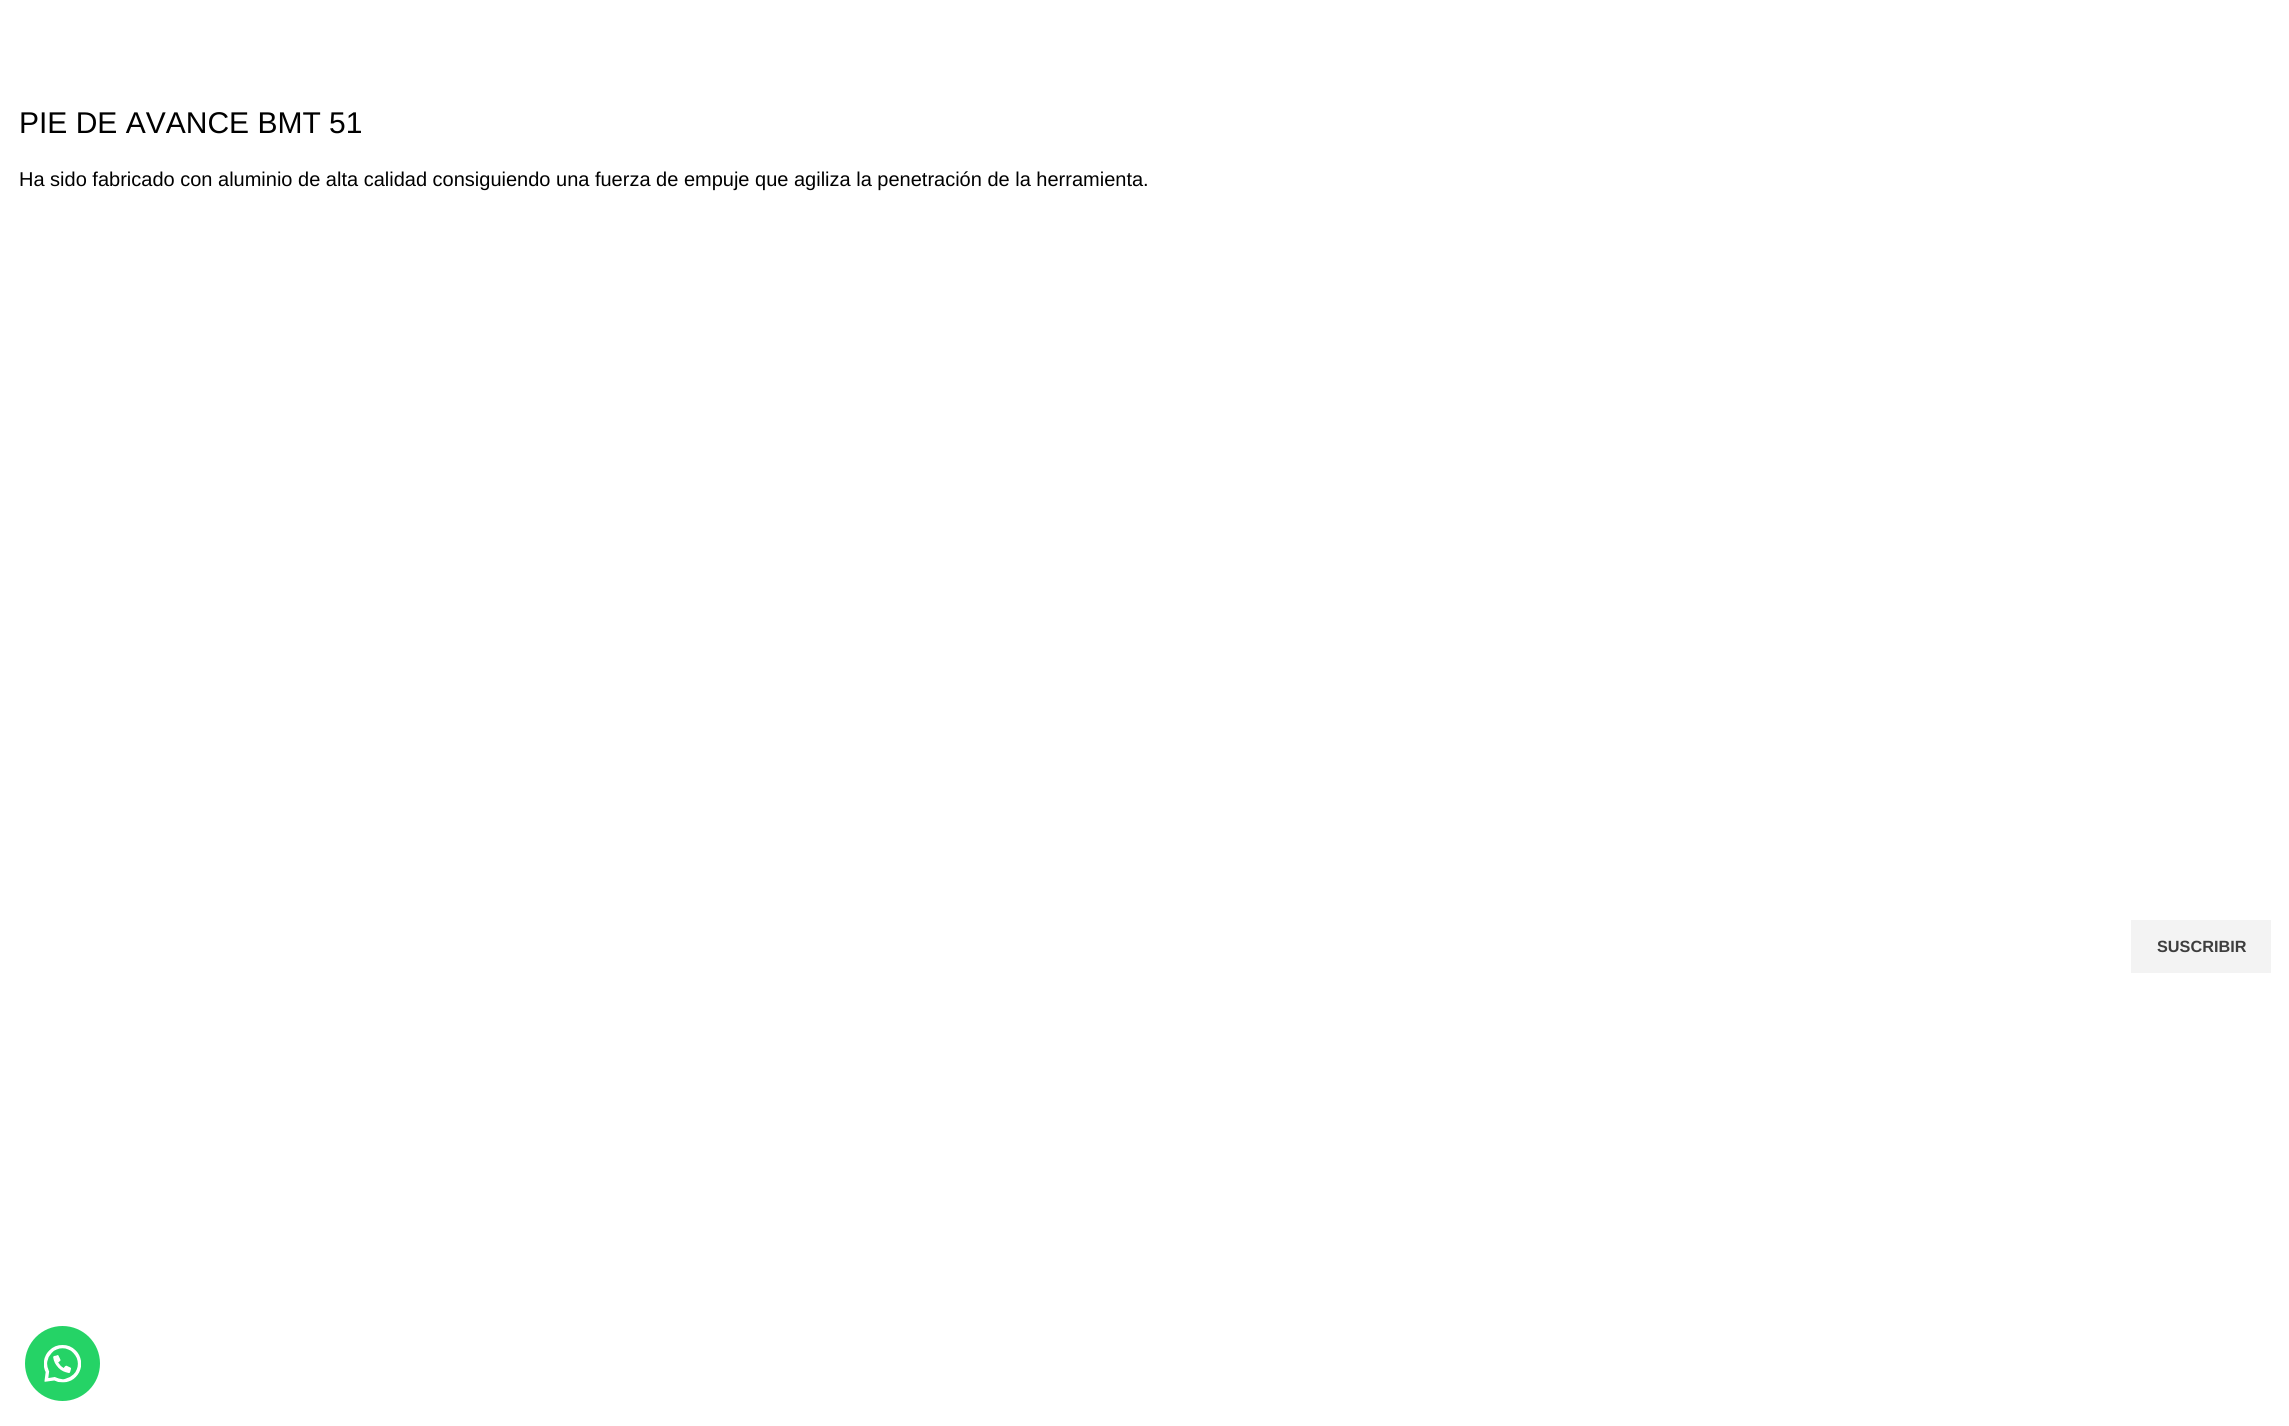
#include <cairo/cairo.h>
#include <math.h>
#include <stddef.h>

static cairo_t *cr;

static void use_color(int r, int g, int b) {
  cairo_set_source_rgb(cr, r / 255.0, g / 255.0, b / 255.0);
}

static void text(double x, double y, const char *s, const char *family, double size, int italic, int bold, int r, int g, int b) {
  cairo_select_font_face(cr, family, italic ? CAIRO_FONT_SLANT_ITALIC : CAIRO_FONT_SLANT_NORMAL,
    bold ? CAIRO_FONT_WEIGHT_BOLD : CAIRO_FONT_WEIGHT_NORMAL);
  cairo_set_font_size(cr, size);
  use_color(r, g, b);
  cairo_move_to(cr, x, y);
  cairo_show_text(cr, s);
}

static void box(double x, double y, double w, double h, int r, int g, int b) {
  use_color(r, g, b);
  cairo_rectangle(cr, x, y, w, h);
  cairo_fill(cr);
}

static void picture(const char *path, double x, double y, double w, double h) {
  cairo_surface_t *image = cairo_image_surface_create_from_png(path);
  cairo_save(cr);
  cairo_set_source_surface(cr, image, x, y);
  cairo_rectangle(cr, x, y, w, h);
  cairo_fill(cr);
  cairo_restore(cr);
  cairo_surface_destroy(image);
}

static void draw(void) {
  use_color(255, 255, 255);
  cairo_paint(cr);
  box(2131, 920, 140, 53, 243, 243, 243);
  use_color(37, 211, 102);
  cairo_arc(cr, 62.5, 1363.5, 37.5, 0, 2 * M_PI);
  cairo_fill(cr);
  picture("img_01.png", 44, 1345, 37, 38);
  text(19, 133, "PIE DE AVANCE BMT 51", "Liberation Sans", 30, 0, 0, 0, 0, 0);
  text(19, 186, "Ha sido fabricado con aluminio de alta calidad consiguiendo una fuerza de empuje que agiliza la penetración de la herramienta.", "Liberation Sans", 20, 0, 0, 0, 0, 0);
  text(2157, 952, "SUSCRIBIR", "Liberation Sans", 16.25, 0, 1, 62, 62, 62);
}

int main(void) {
  cairo_surface_t *surface = cairo_image_surface_create(CAIRO_FORMAT_RGB24, 2289, 1426);
  cr = cairo_create(surface);
  cairo_font_options_t *options = cairo_font_options_create();
  cairo_font_options_set_hint_metrics(options, CAIRO_HINT_METRICS_OFF);
  cairo_font_options_set_hint_style(options, CAIRO_HINT_STYLE_NONE);
  cairo_set_font_options(cr, options);
  cairo_set_miter_limit(cr, 4);
  draw();
  cairo_surface_write_to_png(surface, "out.png");
  cairo_font_options_destroy(options);
  cairo_destroy(cr);
  cairo_surface_destroy(surface);
  return 0;
}
